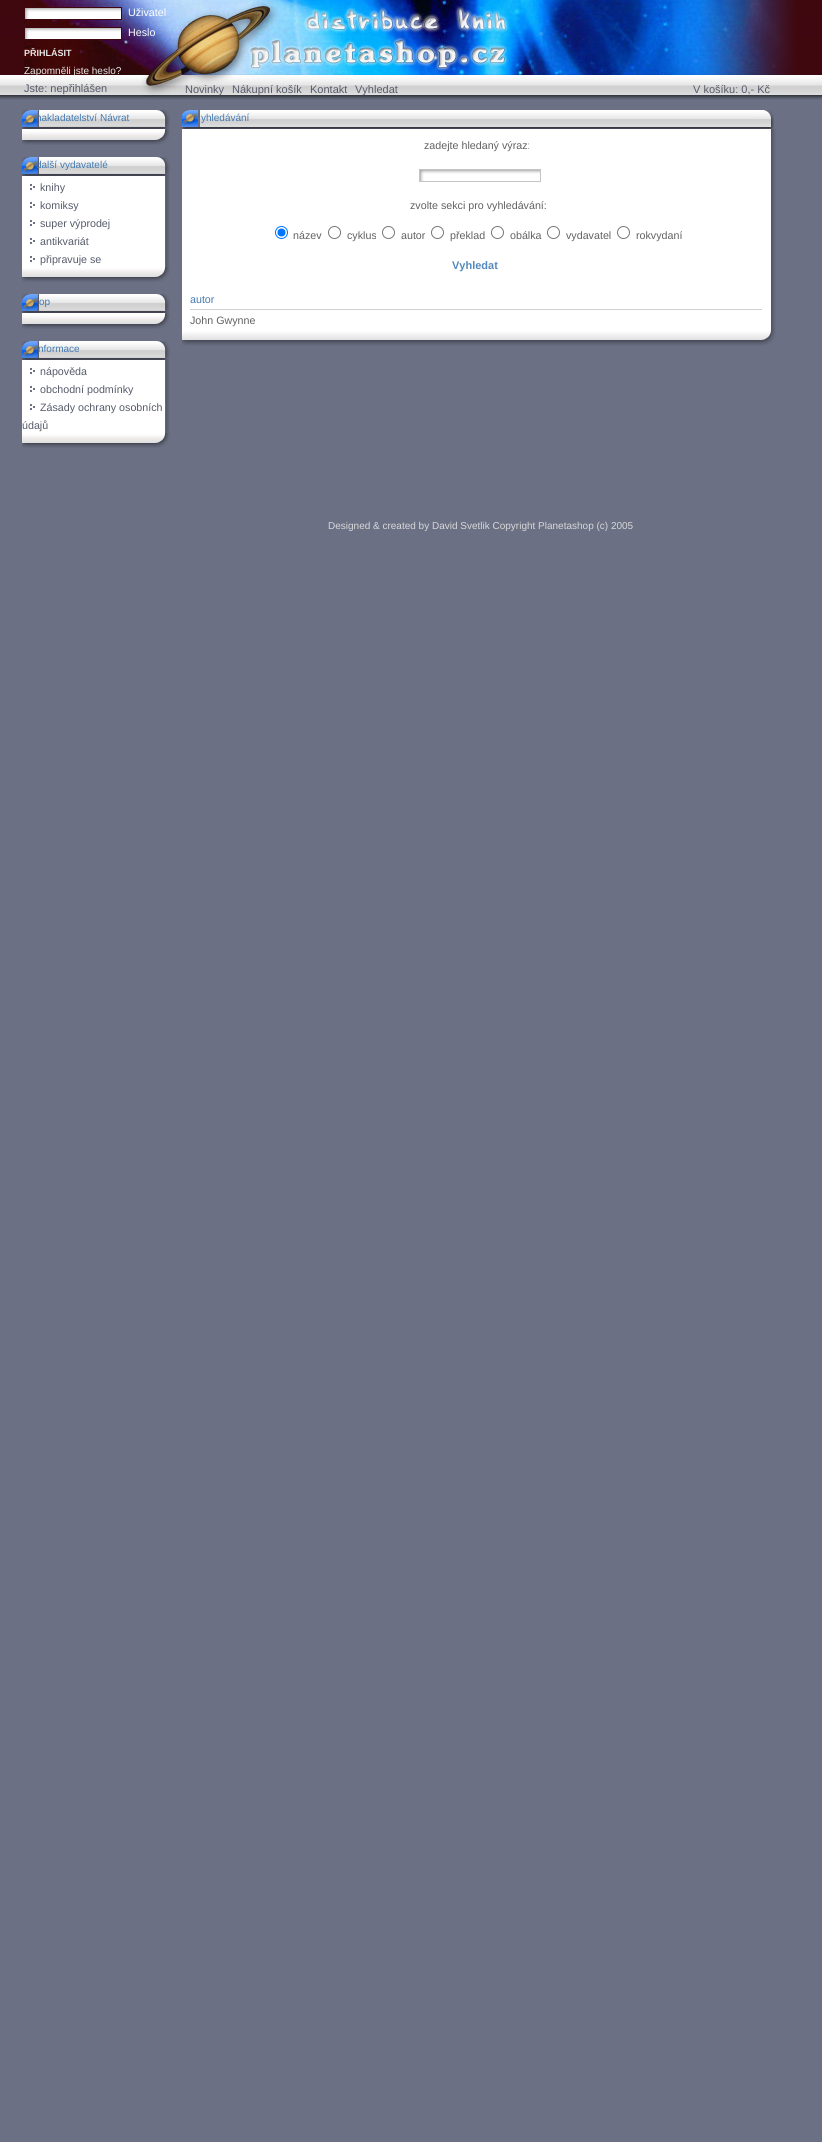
#include <cairo/cairo.h>
#include <math.h>
#include <stddef.h>

static cairo_t *cr;

static void use_color(int r, int g, int b) {
  cairo_set_source_rgb(cr, r / 255.0, g / 255.0, b / 255.0);
}

static void text(double x, double y, const char *s, const char *family, double size, int italic, int bold, int r, int g, int b) {
  cairo_select_font_face(cr, family, italic ? CAIRO_FONT_SLANT_ITALIC : CAIRO_FONT_SLANT_NORMAL,
    bold ? CAIRO_FONT_WEIGHT_BOLD : CAIRO_FONT_WEIGHT_NORMAL);
  cairo_set_font_size(cr, size);
  use_color(r, g, b);
  cairo_move_to(cr, x, y);
  cairo_show_text(cr, s);
}

static void box(double x, double y, double w, double h, int r, int g, int b) {
  use_color(r, g, b);
  cairo_rectangle(cr, x, y, w, h);
  cairo_fill(cr);
}

static void picture(const char *path, double x, double y, double w, double h) {
  cairo_surface_t *image = cairo_image_surface_create_from_png(path);
  cairo_save(cr);
  cairo_set_source_surface(cr, image, x, y);
  cairo_rectangle(cr, x, y, w, h);
  cairo_fill(cr);
  cairo_restore(cr);
  cairo_surface_destroy(image);
}

static void draw(void) {
  use_color(107, 112, 132);
  cairo_paint(cr);
  picture("img_01.png", 0, 0, 822, 100);
  picture("img_02.png", 24, 0, 774, 100);
  picture("img_03.png", 25, 8, 96, 11);
  cairo_rectangle(cr, 24.5, 7.5, 97, 12);
  use_color(63, 7, 15);
  cairo_set_line_width(cr, 1);
  cairo_stroke(cr);
  picture("img_03.png", 25, 28, 96, 11);
  cairo_rectangle(cr, 24.5, 27.5, 97, 12);
  cairo_stroke(cr);
  box(24, 48, 25, 10, 66, 6, 6);
  picture("img_04.png", 22, 110, 148, 20);
  picture("img_05.png", 22, 130, 148, 15);
  picture("img_04.png", 22, 157, 148, 20);
  picture("img_06.png", 22, 177, 148, 90);
  picture("img_07.png", 30, 184, 5, 6);
  picture("img_07.png", 30, 202, 5, 6);
  picture("img_07.png", 30, 220, 5, 6);
  picture("img_07.png", 30, 238, 5, 6);
  picture("img_07.png", 30, 256, 5, 6);
  picture("img_05.png", 22, 267, 148, 15);
  picture("img_04.png", 22, 294, 148, 20);
  picture("img_05.png", 22, 314, 148, 15);
  picture("img_04.png", 22, 341, 148, 20);
  picture("img_08.png", 22, 361, 148, 72);
  picture("img_07.png", 30, 368, 5, 6);
  picture("img_07.png", 30, 386, 5, 6);
  picture("img_07.png", 30, 404, 5, 6);
  picture("img_05.png", 22, 433, 148, 15);
  picture("img_09.png", 182, 110, 592, 19);
  picture("img_10.png", 182, 129, 594, 160);
  picture("img_11.png", 420, 170, 120, 11);
  cairo_rectangle(cr, 419.5, 169.5, 121, 12);
  use_color(196, 196, 196);
  cairo_stroke(cr);
  cairo_arc(cr, 281.5, 232.5, 6, 0, 2 * M_PI);
  use_color(0, 117, 255);
  cairo_stroke(cr);
  cairo_arc(cr, 281.5, 232.5, 4, 0, 2 * M_PI);
  cairo_fill(cr);
  cairo_arc(cr, 334.5, 232.5, 6, 0, 2 * M_PI);
  use_color(118, 118, 118);
  cairo_stroke(cr);
  cairo_arc(cr, 388.5, 232.5, 6, 0, 2 * M_PI);
  cairo_stroke(cr);
  cairo_arc(cr, 437.5, 232.5, 6, 0, 2 * M_PI);
  cairo_stroke(cr);
  cairo_arc(cr, 497.5, 232.5, 6, 0, 2 * M_PI);
  cairo_stroke(cr);
  cairo_arc(cr, 553.5, 232.5, 6, 0, 2 * M_PI);
  cairo_stroke(cr);
  cairo_arc(cr, 623.5, 232.5, 6, 0, 2 * M_PI);
  cairo_stroke(cr);
  picture("img_12.png", 182, 289, 594, 20);
  picture("img_13.png", 182, 309, 594, 21);
  box(190, 309, 572, 1, 208, 208, 208);
  picture("img_14.png", 182, 330, 594, 16);
  text(128, 16, "Uživatel", "Liberation Sans", 10.7, 0, 0, 255, 255, 255);
  text(128, 36, "Heslo", "Liberation Sans", 10.7, 0, 0, 255, 255, 255);
  text(24, 56, "PŘIHLÁSIT", "Liberation Sans", 9, 0, 1, 232, 232, 232);
  text(24, 74, "Zapomněli jste heslo?", "Liberation Sans", 10, 0, 0, 232, 232, 232);
  text(24, 92, "Jste: nepřihlášen", "Liberation Sans", 11, 0, 0, 87, 91, 106);
  text(185, 93, "Novinky", "Liberation Sans", 11, 0, 0, 87, 91, 106);
  text(232, 93, "Nákupní košík", "Liberation Sans", 11, 0, 0, 87, 91, 106);
  text(310, 93, "Kontakt", "Liberation Sans", 11, 0, 0, 87, 91, 106);
  text(355, 93, "Vyhledat", "Liberation Sans", 11, 0, 0, 87, 91, 106);
  text(693, 93, "V košíku: 0,- Kč", "Liberation Sans", 11, 0, 0, 87, 91, 106);
  text(36, 121, "nakladatelství Návrat", "Liberation Sans", 10, 0, 0, 67, 122, 177);
  text(36, 168, "další vydavatelé", "Liberation Sans", 10, 0, 0, 67, 122, 177);
  text(40, 191, "knihy", "Liberation Sans", 10.7, 0, 0, 87, 91, 106);
  text(40, 209, "komiksy", "Liberation Sans", 10.7, 0, 0, 87, 91, 106);
  text(40, 227, "super výprodej", "Liberation Sans", 10.7, 0, 0, 87, 91, 106);
  text(40, 245, "antikvariát", "Liberation Sans", 10.7, 0, 0, 87, 91, 106);
  text(40, 263, "připravuje se", "Liberation Sans", 10.7, 0, 0, 87, 91, 106);
  text(39, 305, "op", "Liberation Sans", 10, 0, 0, 67, 122, 177);
  text(38, 352, "nformace", "Liberation Sans", 10, 0, 0, 67, 122, 177);
  text(40, 375, "nápověda", "Liberation Sans", 10.7, 0, 0, 87, 91, 106);
  text(40, 393, "obchodní podmínky", "Liberation Sans", 10.7, 0, 0, 87, 91, 106);
  text(40, 411, "Zásady ochrany osobních", "Liberation Sans", 10.7, 0, 0, 87, 91, 106);
  text(22, 429, "údajů", "Liberation Sans", 10.7, 0, 0, 87, 91, 106);
  text(201, 121, "yhledávání", "Liberation Sans", 10, 0, 0, 67, 122, 177);
  text(424, 149, "zadejte hledaný výraz:", "Liberation Sans", 10.7, 0, 0, 97, 97, 97);
  text(410, 209, "zvolte sekci pro vyhledávání:", "Liberation Sans", 10.7, 0, 0, 97, 97, 97);
  text(293, 239, "název", "Liberation Sans", 10.7, 0, 0, 97, 97, 97);
  text(347, 239, "cyklus", "Liberation Sans", 10.7, 0, 0, 97, 97, 97);
  text(401, 239, "autor", "Liberation Sans", 10.7, 0, 0, 97, 97, 97);
  text(450, 239, "překlad", "Liberation Sans", 10.7, 0, 0, 97, 97, 97);
  text(510, 239, "obálka", "Liberation Sans", 10.7, 0, 0, 97, 97, 97);
  text(566, 239, "vydavatel", "Liberation Sans", 10.7, 0, 0, 97, 97, 97);
  text(636, 239, "rokvydaní", "Liberation Sans", 10.7, 0, 0, 97, 97, 97);
  text(452, 269, "Vyhledat", "Liberation Sans", 11, 0, 1, 85, 138, 191);
  text(190, 303, "autor", "Liberation Sans", 10.7, 0, 0, 67, 122, 177);
  text(190, 324, "John Gwynne", "Liberation Sans", 10.7, 0, 0, 97, 97, 97);
  text(328, 529, "Designed & created by David Svetlik Copyright Planetashop (c) 2005", "Liberation Sans", 10, 0, 0, 216, 216, 216);
}

int main(void) {
  cairo_surface_t *surface = cairo_image_surface_create(CAIRO_FORMAT_RGB24, 822, 2142);
  cr = cairo_create(surface);
  cairo_font_options_t *options = cairo_font_options_create();
  cairo_font_options_set_hint_metrics(options, CAIRO_HINT_METRICS_OFF);
  cairo_font_options_set_hint_style(options, CAIRO_HINT_STYLE_NONE);
  cairo_set_font_options(cr, options);
  cairo_set_miter_limit(cr, 4);
  draw();
  cairo_surface_write_to_png(surface, "out.png");
  cairo_font_options_destroy(options);
  cairo_destroy(cr);
  cairo_surface_destroy(surface);
  return 0;
}
